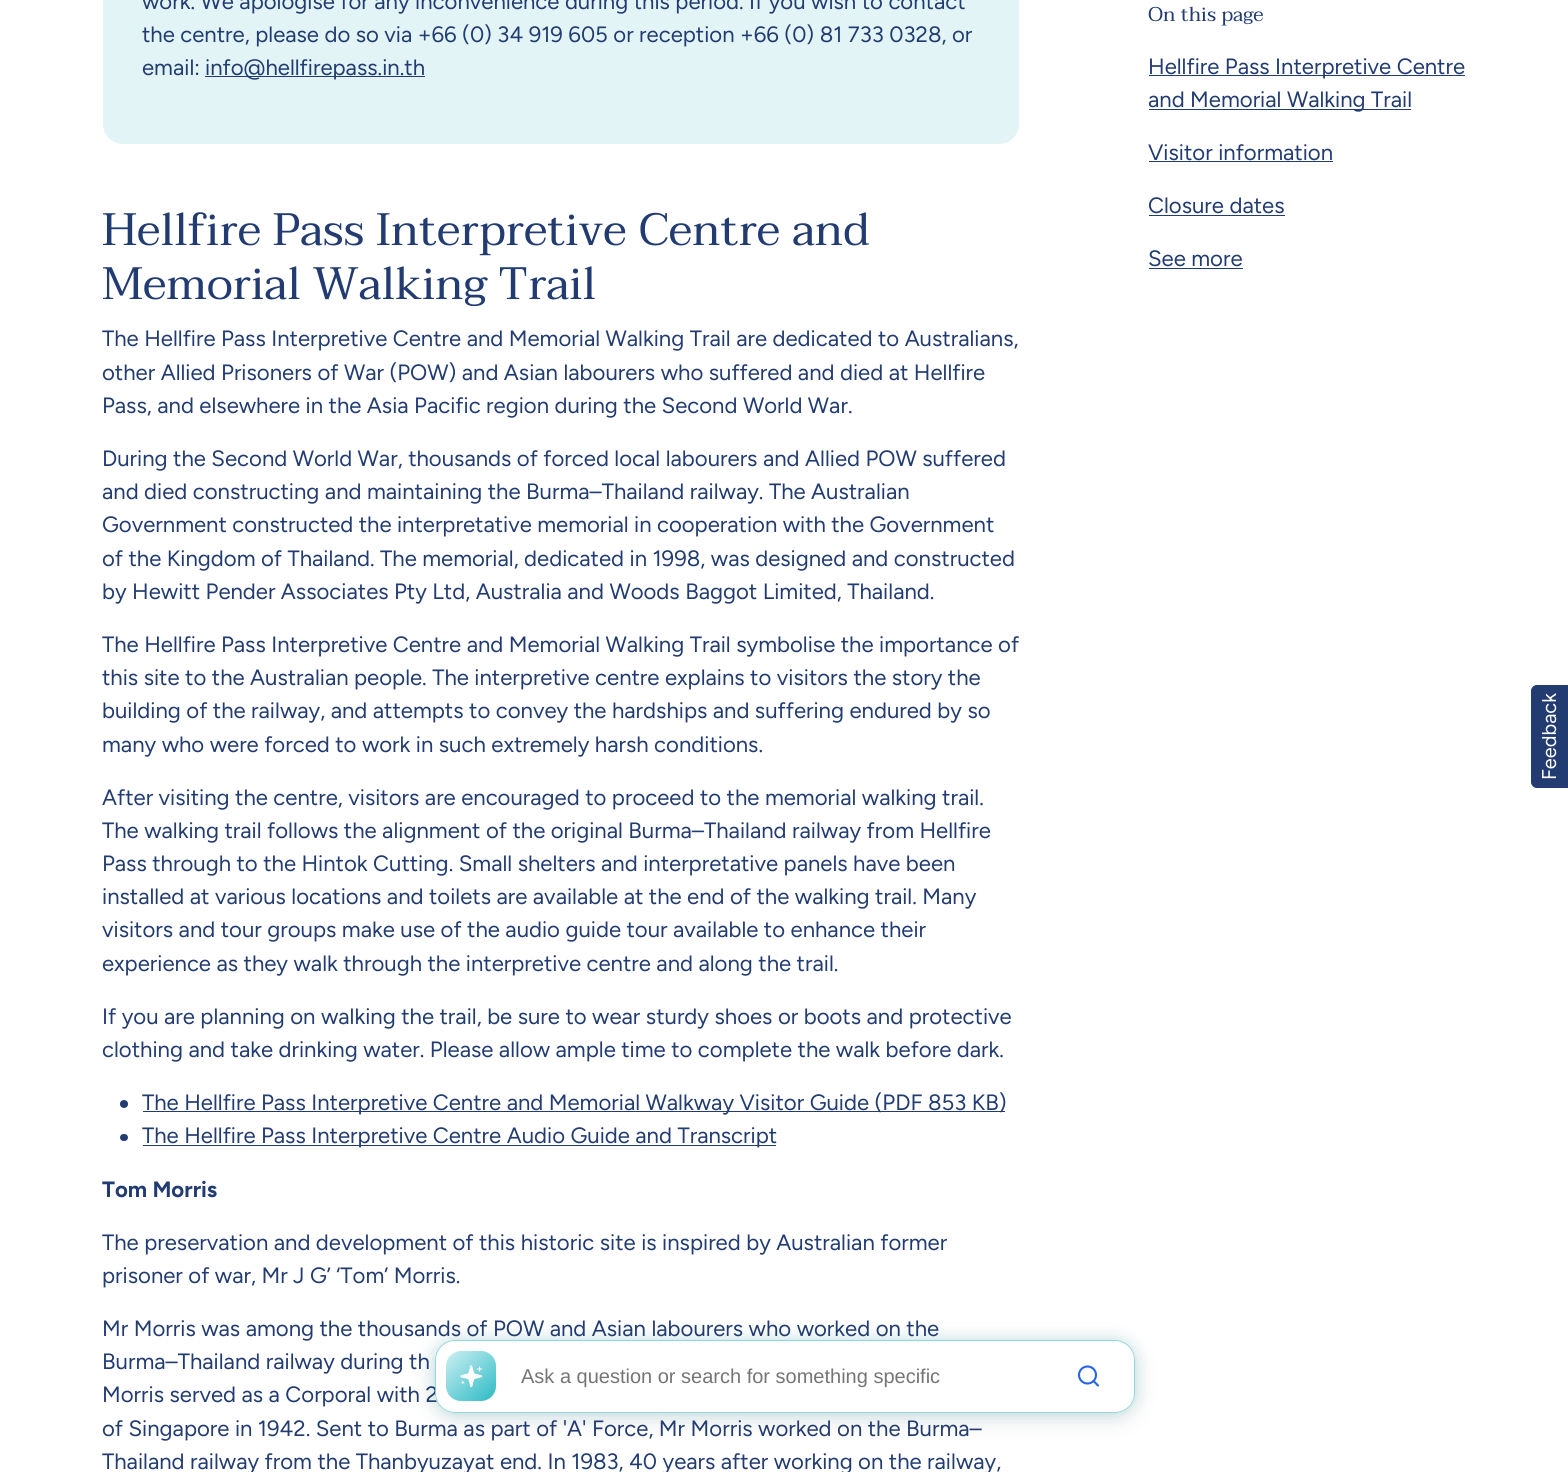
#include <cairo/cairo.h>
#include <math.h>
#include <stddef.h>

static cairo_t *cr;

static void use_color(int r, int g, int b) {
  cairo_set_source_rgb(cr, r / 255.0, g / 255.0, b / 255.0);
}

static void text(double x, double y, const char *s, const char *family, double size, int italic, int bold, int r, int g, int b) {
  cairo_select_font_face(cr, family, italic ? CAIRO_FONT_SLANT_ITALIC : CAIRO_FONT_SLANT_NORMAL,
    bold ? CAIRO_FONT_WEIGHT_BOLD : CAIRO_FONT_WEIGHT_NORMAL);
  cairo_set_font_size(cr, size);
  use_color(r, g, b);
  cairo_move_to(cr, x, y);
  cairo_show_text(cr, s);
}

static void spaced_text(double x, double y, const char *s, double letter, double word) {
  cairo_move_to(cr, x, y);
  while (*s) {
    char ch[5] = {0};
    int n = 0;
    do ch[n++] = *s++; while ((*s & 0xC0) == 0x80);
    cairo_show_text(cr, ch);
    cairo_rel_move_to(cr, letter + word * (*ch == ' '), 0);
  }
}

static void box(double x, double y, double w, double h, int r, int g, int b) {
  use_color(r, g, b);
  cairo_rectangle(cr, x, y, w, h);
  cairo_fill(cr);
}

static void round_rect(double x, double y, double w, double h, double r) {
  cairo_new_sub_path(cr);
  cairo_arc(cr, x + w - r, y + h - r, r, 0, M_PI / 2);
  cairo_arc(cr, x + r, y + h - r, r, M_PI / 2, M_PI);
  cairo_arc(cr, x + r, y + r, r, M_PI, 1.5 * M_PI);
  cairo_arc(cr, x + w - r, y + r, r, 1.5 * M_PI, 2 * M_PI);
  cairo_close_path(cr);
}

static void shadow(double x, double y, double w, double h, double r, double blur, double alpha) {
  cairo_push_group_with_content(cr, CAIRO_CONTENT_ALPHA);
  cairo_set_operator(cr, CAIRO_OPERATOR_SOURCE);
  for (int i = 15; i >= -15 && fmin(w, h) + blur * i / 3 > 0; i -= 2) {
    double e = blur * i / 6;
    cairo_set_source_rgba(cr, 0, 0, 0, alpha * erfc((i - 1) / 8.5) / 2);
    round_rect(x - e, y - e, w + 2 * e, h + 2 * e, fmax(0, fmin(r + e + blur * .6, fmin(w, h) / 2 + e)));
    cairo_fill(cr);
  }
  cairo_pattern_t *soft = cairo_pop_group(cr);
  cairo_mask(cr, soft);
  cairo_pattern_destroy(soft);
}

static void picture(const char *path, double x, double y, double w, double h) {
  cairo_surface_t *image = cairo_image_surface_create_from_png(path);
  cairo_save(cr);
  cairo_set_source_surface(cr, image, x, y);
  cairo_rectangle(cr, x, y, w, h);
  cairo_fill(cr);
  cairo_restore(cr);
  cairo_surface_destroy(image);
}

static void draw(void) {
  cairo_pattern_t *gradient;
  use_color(255, 255, 255);
  cairo_paint(cr);
  use_color(226, 244, 245);
  round_rect(103, -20, 916, 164, 20);
  cairo_fill(cr);
  box(205, 76, 220, 1, 34, 60, 114);
  cairo_arc(cr, 124, 1104, 4, 0, 2 * M_PI);
  cairo_fill(cr);
  box(143, 1111, 862, 1, 34, 60, 114);
  round_rect(120, 1134, 8, 7, 3.5);
  cairo_fill(cr);
  box(143, 1145, 633, 1, 34, 60, 114);
  box(1149, 75, 316, 1, 34, 60, 114);
  box(1149, 109, 262, 1, 34, 60, 114);
  box(1149, 161, 184, 1, 34, 60, 114);
  box(1149, 215, 136, 1, 34, 60, 114);
  box(1149, 268, 94, 1, 34, 60, 114);
  cairo_new_path(cr);
  cairo_move_to(cr, 1537, 685.5);
  cairo_line_to(cr, 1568.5, 685.5);
  cairo_line_to(cr, 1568.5, 787.5);
  cairo_line_to(cr, 1537, 787.5);
  cairo_curve_to(cr, 1534, 787.5, 1531.5, 785, 1531.5, 782);
  cairo_line_to(cr, 1531.5, 691);
  cairo_curve_to(cr, 1531.5, 688, 1534, 685.5, 1537, 685.5);
  cairo_close_path(cr);
  cairo_fill_preserve(cr);
  cairo_set_line_width(cr, 1);
  cairo_stroke(cr);
  cairo_save(cr);
  cairo_set_fill_rule(cr, CAIRO_FILL_RULE_EVEN_ODD);
  cairo_new_path(cr);
  cairo_move_to(cr, 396, 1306);
  cairo_line_to(cr, 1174, 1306);
  cairo_line_to(cr, 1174, 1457);
  cairo_line_to(cr, 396, 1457);
  cairo_close_path(cr);
  cairo_move_to(cr, 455, 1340);
  cairo_line_to(cr, 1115, 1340);
  cairo_curve_to(cr, 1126, 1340, 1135, 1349, 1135, 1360);
  cairo_line_to(cr, 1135, 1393);
  cairo_curve_to(cr, 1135, 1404, 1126, 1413, 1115, 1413);
  cairo_line_to(cr, 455, 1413);
  cairo_curve_to(cr, 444, 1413, 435, 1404, 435, 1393);
  cairo_line_to(cr, 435, 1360);
  cairo_curve_to(cr, 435, 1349, 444, 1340, 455, 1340);
  cairo_close_path(cr);
  cairo_clip(cr);
  use_color(17, 17, 17);
  shadow(435, 1345, 700, 73, 20, 12.5, 0.12);
  cairo_restore(cr);
  cairo_save(cr);
  cairo_set_fill_rule(cr, CAIRO_FILL_RULE_EVEN_ODD);
  cairo_new_path(cr);
  cairo_move_to(cr, 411, 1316);
  cairo_line_to(cr, 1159, 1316);
  cairo_line_to(cr, 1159, 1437);
  cairo_line_to(cr, 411, 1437);
  cairo_close_path(cr);
  cairo_move_to(cr, 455, 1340);
  cairo_line_to(cr, 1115, 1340);
  cairo_curve_to(cr, 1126, 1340, 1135, 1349, 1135, 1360);
  cairo_line_to(cr, 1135, 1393);
  cairo_curve_to(cr, 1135, 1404, 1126, 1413, 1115, 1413);
  cairo_line_to(cr, 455, 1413);
  cairo_curve_to(cr, 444, 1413, 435, 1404, 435, 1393);
  cairo_line_to(cr, 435, 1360);
  cairo_curve_to(cr, 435, 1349, 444, 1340, 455, 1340);
  cairo_close_path(cr);
  cairo_clip(cr);
  use_color(79, 187, 195);
  shadow(435, 1340, 700, 73, 20, 7.5, 0.3);
  cairo_restore(cr);
  text(142, 9, "work. We apologise for any inconvenience during this period. If you wish to contact", "Figtree", 22.15, 0, 0, 34, 60, 114);
  text(142, 42, "the centre, please do so via +66 (0) 34 919 605 or reception +66 (0) 81 733 0328, or", "Figtree", 22.15, 0, 0, 34, 60, 114);
  text(142, 75, "email:", "Figtree", 22.15, 0, 0, 34, 60, 114);
  text(205, 75, "info@hellfirepass.in.th", "Figtree", 22.15, 0, 0, 34, 60, 114);
  text(102, 245, "Hellfire Pass Interpretive Centre and", "Taviraj", 45.4, 0, 0, 34, 60, 114);
  text(102, 299, "Memorial Walking Trail", "Taviraj", 45.4, 0, 0, 34, 60, 114);
  text(102, 346, "The Hellfire Pass Interpretive Centre and Memorial Walking Trail are dedicated to Australians,", "Figtree", 22.15, 0, 0, 34, 60, 114);
  text(102, 380, "other Allied Prisoners of War (POW) and Asian labourers who suffered and died at Hellfire", "Figtree", 22.15, 0, 0, 34, 60, 114);
  text(102, 413, "Pass, and elsewhere in the Asia Pacific region during the Second World War.", "Figtree", 22.15, 0, 0, 34, 60, 114);
  text(102, 466, "During the Second World War, thousands of forced local labourers and Allied POW suffered", "Figtree", 22.15, 0, 0, 34, 60, 114);
  text(102, 499, "and died constructing and maintaining the Burma–Thailand railway. The Australian", "Figtree", 22.15, 0, 0, 34, 60, 114);
  spaced_text(102, 532, "Government constructed the interpretative memorial in cooperation with the Government", 0, -0.1);
  text(102, 566, "of the Kingdom of Thailand. The memorial, dedicated in 1998, was designed and constructed", "Figtree", 22.15, 0, 0, 34, 60, 114);
  text(102, 599, "by Hewitt Pender Associates Pty Ltd, Australia and Woods Baggot Limited, Thailand.", "Figtree", 22.15, 0, 0, 34, 60, 114);
  text(102, 652, "The Hellfire Pass Interpretive Centre and Memorial Walking Trail symbolise the importance of", "Figtree", 22.15, 0, 0, 34, 60, 114);
  text(102, 685, "this site to the Australian people. The interpretive centre explains to visitors the story the", "Figtree", 22.15, 0, 0, 34, 60, 114);
  text(102, 718, "building of the railway, and attempts to convey the hardships and suffering endured by so", "Figtree", 22.15, 0, 0, 34, 60, 114);
  text(102, 752, "many who were forced to work in such extremely harsh conditions.", "Figtree", 22.15, 0, 0, 34, 60, 114);
  text(102, 805, "After visiting the centre, visitors are encouraged to proceed to the memorial walking trail.", "Figtree", 22.15, 0, 0, 34, 60, 114);
  text(102, 838, "The walking trail follows the alignment of the original Burma–Thailand railway from Hellfire", "Figtree", 22.15, 0, 0, 34, 60, 114);
  text(102, 871, "Pass through to the Hintok Cutting. Small shelters and interpretative panels have been", "Figtree", 22.15, 0, 0, 34, 60, 114);
  text(102, 904, "installed at various locations and toilets are available at the end of the walking trail. Many", "Figtree", 22.15, 0, 0, 34, 60, 114);
  text(102, 937, "visitors and tour groups make use of the audio guide tour available to enhance their", "Figtree", 22.15, 0, 0, 34, 60, 114);
  text(102, 971, "experience as they walk through the interpretive centre and along the trail.", "Figtree", 22.15, 0, 0, 34, 60, 114);
  text(102, 1024, "If you are planning on walking the trail, be sure to wear sturdy shoes or boots and protective", "Figtree", 22.15, 0, 0, 34, 60, 114);
  text(102, 1057, "clothing and take drinking water. Please allow ample time to complete the walk before dark.", "Figtree", 22.15, 0, 0, 34, 60, 114);
  text(142, 1110, "The Hellfire Pass Interpretive Centre and Memorial Walkway Visitor Guide (PDF 853 KB)", "Figtree", 22.15, 0, 0, 34, 60, 114);
  text(142, 1143, "The Hellfire Pass Interpretive Centre Audio Guide and Transcript", "Figtree", 22.15, 0, 0, 34, 60, 114);
  text(102, 1197, "Tom Morris", "Figtree", 22.15, 0, 1, 34, 60, 114);
  text(102, 1250, "The preservation and development of this historic site is inspired by Australian former", "Figtree", 22.15, 0, 0, 34, 60, 114);
  text(102, 1283, "prisoner of war, Mr J G’ ‘Tom’ Morris.", "Figtree", 22.15, 0, 0, 34, 60, 114);
  text(102, 1336, "Mr Morris was among the thousands of POW and Asian labourers who worked on the", "Figtree", 22.15, 0, 0, 34, 60, 114);
  text(102, 1369, "Burma–Thailand railway during th", "Figtree", 22.15, 0, 0, 34, 60, 114);
  text(102, 1402, "Morris served as a Corporal with 2", "Figtree", 22.15, 0, 0, 34, 60, 114);
  text(102, 1436, "of Singapore in 1942. Sent to Burma as part of 'A' Force, Mr Morris worked on the Burma–", "Figtree", 22.15, 0, 0, 34, 60, 114);
  text(102, 1469, "Thailand railway from the Thanbyuzayat end. In 1983, 40 years after working on the railway,", "Figtree", 22.15, 0, 0, 34, 60, 114);
  text(1148, 21, "On this page", "Taviraj", 20, 0, 0, 34, 60, 114);
  text(1148, 74, "Hellfire Pass Interpretive Centre", "Figtree", 22.15, 0, 0, 34, 60, 114);
  text(1148, 107, "and Memorial Walking Trail", "Figtree", 22.15, 0, 0, 34, 60, 114);
  text(1148, 160, "Visitor information", "Figtree", 22.15, 0, 0, 34, 60, 114);
  text(1148, 213, "Closure dates", "Figtree", 22.15, 0, 0, 34, 60, 114);
  text(1148, 266, "See more", "Figtree", 22.15, 0, 0, 34, 60, 114);
  cairo_save(cr);
  cairo_translate(cr, 1556, 780);
  cairo_rotate(cr, -90 * M_PI / 180);
  text(0, 0, "Feedback", "Figtree", 20, 0, 0, 255, 255, 255);
  cairo_restore(cr);
  cairo_set_source_rgba(cr, 1, 1, 1, 0.8);
  round_rect(435, 1340, 700, 73, 20);
  cairo_fill(cr);
  round_rect(435.5, 1340.5, 699, 72, 19.5);
  cairo_set_source_rgba(cr, 0.31, 0.733, 0.765, 0.6);
  cairo_stroke(cr);
  gradient = cairo_pattern_create_linear(444, 1346, 507, 1416);
  cairo_pattern_add_color_stop_rgba(gradient, 0, 0.851, 0.957, 0.965, 1);
  cairo_pattern_add_color_stop_rgba(gradient, 1, 0, 0.671, 0.722, 1);
  cairo_set_source(cr, gradient);
  cairo_pattern_destroy(gradient);
  round_rect(446, 1351, 50, 50, 15);
  cairo_fill(cr);
  picture("img_01.png", 460, 1365, 23, 23);
  text(521, 1383, "Ask a question or search for something specific", "Liberation Sans", 20, 0, 0, 117, 117, 117);
  cairo_new_path(cr);
  cairo_move_to(cr, 1098, 1385.5);
  cairo_line_to(cr, 1093.5, 1381);
  use_color(37, 99, 235);
  cairo_set_line_width(cr, 2.1);
  cairo_set_line_cap(cr, CAIRO_LINE_CAP_ROUND);
  cairo_set_line_join(cr, CAIRO_LINE_JOIN_ROUND);
  cairo_stroke(cr);
  cairo_arc(cr, 1087.5, 1375, 8.5, 0, 2 * M_PI);
  cairo_set_line_cap(cr, CAIRO_LINE_CAP_BUTT);
  cairo_set_line_join(cr, CAIRO_LINE_JOIN_MITER);
  cairo_stroke(cr);
}

int main(void) {
  cairo_surface_t *surface = cairo_image_surface_create(CAIRO_FORMAT_RGB24, 1568, 1472);
  cr = cairo_create(surface);
  cairo_font_options_t *options = cairo_font_options_create();
  cairo_font_options_set_hint_metrics(options, CAIRO_HINT_METRICS_OFF);
  cairo_font_options_set_hint_style(options, CAIRO_HINT_STYLE_NONE);
  cairo_set_font_options(cr, options);
  cairo_set_miter_limit(cr, 4);
  draw();
  cairo_surface_write_to_png(surface, "out.png");
  cairo_font_options_destroy(options);
  cairo_destroy(cr);
  cairo_surface_destroy(surface);
  return 0;
}
